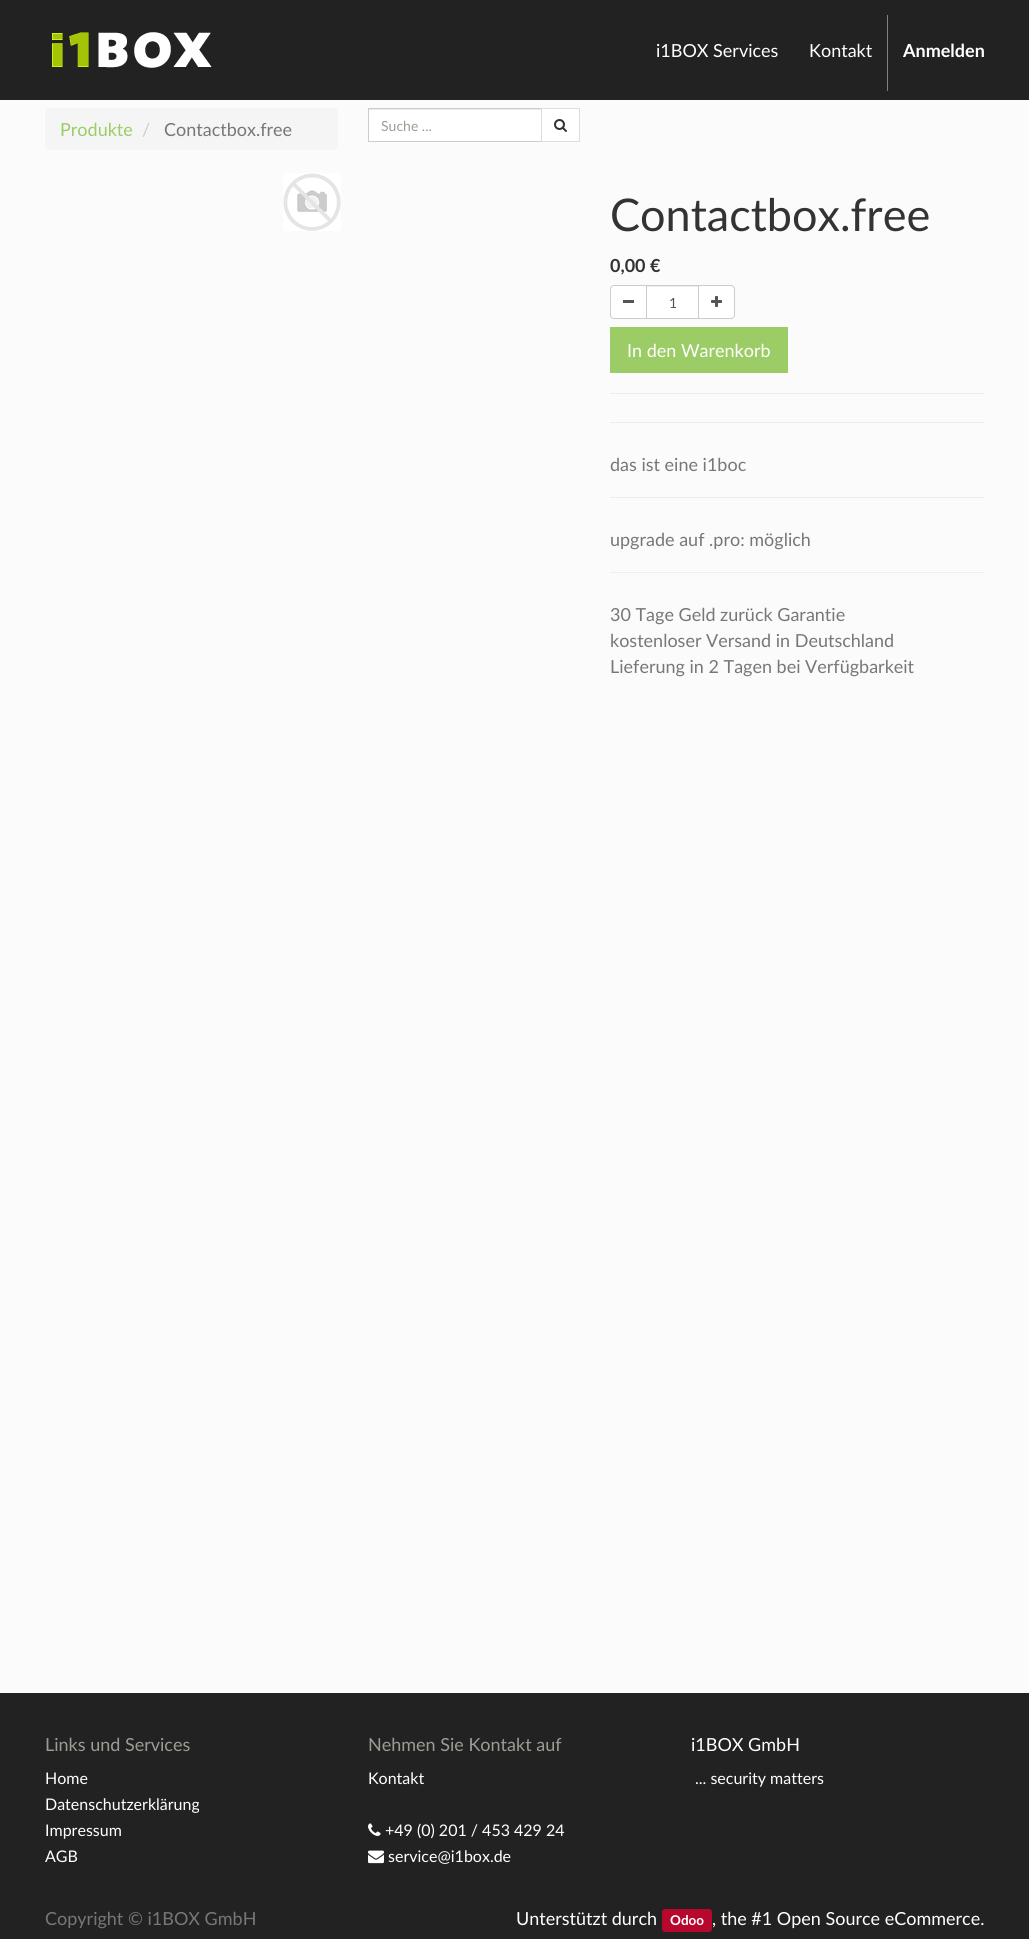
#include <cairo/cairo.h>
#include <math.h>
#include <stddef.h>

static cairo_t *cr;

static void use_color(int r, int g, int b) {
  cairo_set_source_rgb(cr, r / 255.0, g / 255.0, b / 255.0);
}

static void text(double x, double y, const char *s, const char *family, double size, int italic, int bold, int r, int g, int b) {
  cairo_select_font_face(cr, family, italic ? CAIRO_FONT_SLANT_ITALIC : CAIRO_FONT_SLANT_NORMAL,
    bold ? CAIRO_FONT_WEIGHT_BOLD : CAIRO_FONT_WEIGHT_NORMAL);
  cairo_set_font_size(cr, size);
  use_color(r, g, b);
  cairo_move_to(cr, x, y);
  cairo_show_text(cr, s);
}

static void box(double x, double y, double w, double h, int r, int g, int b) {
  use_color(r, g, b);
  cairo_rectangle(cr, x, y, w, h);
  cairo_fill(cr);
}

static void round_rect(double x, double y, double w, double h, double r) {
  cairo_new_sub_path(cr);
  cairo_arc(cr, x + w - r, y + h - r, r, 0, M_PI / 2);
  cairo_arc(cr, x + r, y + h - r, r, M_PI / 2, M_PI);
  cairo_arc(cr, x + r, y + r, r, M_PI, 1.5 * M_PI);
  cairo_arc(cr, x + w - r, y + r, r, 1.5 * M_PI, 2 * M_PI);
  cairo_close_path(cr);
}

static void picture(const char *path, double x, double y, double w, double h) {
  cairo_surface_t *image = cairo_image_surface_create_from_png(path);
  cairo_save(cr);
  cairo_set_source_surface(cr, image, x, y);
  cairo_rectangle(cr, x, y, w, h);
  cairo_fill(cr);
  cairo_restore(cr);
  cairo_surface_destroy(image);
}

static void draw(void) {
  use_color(251, 251, 251);
  cairo_paint(cr);
  box(0, 0, 1029, 100, 34, 34, 34);
  picture("img_01.png", 52, 32, 160, 36);
  box(887, 15, 1, 76, 128, 128, 128);
  use_color(245, 245, 245);
  round_rect(45, 108, 293, 42, 4);
  cairo_fill(cr);
  box(369, 110, 172, 31, 255, 255, 255);
  box(369, 109, 172, 1, 236, 236, 236);
  cairo_rectangle(cr, 368.5, 108.5, 173, 33);
  use_color(204, 204, 204);
  cairo_set_line_width(cr, 1);
  cairo_stroke(cr);
  use_color(255, 255, 255);
  cairo_rectangle(cr, 541.5, 108.5, 38, 33);
  cairo_fill_preserve(cr);
  use_color(221, 221, 221);
  cairo_stroke(cr);
  picture("img_02.png", 554, 119, 13, 13);
  picture("img_03.png", 283, 173, 58, 58);
  use_color(255, 255, 255);
  cairo_new_path(cr);
  cairo_move_to(cr, 614, 285);
  cairo_line_to(cr, 646, 285);
  cairo_line_to(cr, 646, 319);
  cairo_line_to(cr, 614, 319);
  cairo_curve_to(cr, 612, 319, 610, 317, 610, 315);
  cairo_line_to(cr, 610, 289);
  cairo_curve_to(cr, 610, 287, 612, 285, 614, 285);
  cairo_close_path(cr);
  cairo_fill(cr);
  use_color(204, 204, 204);
  cairo_set_fill_rule(cr, CAIRO_FILL_RULE_EVEN_ODD);
  cairo_new_path(cr);
  cairo_move_to(cr, 614, 285);
  cairo_line_to(cr, 646, 285);
  cairo_line_to(cr, 646, 319);
  cairo_line_to(cr, 614, 319);
  cairo_curve_to(cr, 612, 319, 610, 317, 610, 315);
  cairo_line_to(cr, 610, 289);
  cairo_curve_to(cr, 610, 287, 612, 285, 614, 285);
  cairo_close_path(cr);
  cairo_move_to(cr, 614, 286);
  cairo_line_to(cr, 646, 286);
  cairo_line_to(cr, 646, 318);
  cairo_line_to(cr, 614, 318);
  cairo_curve_to(cr, 612.5, 318, 611, 316.5, 611, 315);
  cairo_line_to(cr, 611, 289);
  cairo_curve_to(cr, 611, 287.5, 612.5, 286, 614, 286);
  cairo_close_path(cr);
  cairo_fill(cr);
  box(623, 300, 11, 3, 85, 85, 85);
  box(647, 287, 51, 31, 255, 255, 255);
  box(647, 286, 51, 1, 236, 236, 236);
  cairo_rectangle(cr, 646.5, 285.5, 52, 33);
  use_color(204, 204, 204);
  cairo_stroke(cr);
  use_color(255, 255, 255);
  cairo_new_path(cr);
  cairo_move_to(cr, 699, 285);
  cairo_line_to(cr, 731, 285);
  cairo_curve_to(cr, 733, 285, 735, 287, 735, 289);
  cairo_line_to(cr, 735, 315);
  cairo_curve_to(cr, 735, 317, 733, 319, 731, 319);
  cairo_line_to(cr, 699, 319);
  cairo_close_path(cr);
  cairo_fill(cr);
  use_color(204, 204, 204);
  cairo_new_path(cr);
  cairo_move_to(cr, 699, 285);
  cairo_line_to(cr, 731, 285);
  cairo_curve_to(cr, 733, 285, 735, 287, 735, 289);
  cairo_line_to(cr, 735, 315);
  cairo_curve_to(cr, 735, 317, 733, 319, 731, 319);
  cairo_line_to(cr, 699, 319);
  cairo_close_path(cr);
  cairo_move_to(cr, 699, 286);
  cairo_line_to(cr, 731, 286);
  cairo_curve_to(cr, 732.5, 286, 734, 287.5, 734, 289);
  cairo_line_to(cr, 734, 315);
  cairo_curve_to(cr, 734, 316.5, 732.5, 318, 731, 318);
  cairo_line_to(cr, 699, 318);
  cairo_close_path(cr);
  cairo_fill(cr);
  picture("img_04.png", 711, 296, 11, 11);
  box(610, 327, 178, 46, 156, 204, 101);
  box(610, 393, 374, 1, 238, 238, 238);
  box(610, 422, 374, 1, 238, 238, 238);
  box(610, 497, 374, 1, 238, 238, 238);
  box(610, 572, 374, 1, 238, 238, 238);
  box(0, 1693, 1029, 246, 34, 34, 34);
  picture("img_05.png", 368, 1823, 13, 13);
  picture("img_06.png", 368, 1850, 16, 14);
  use_color(183, 7, 45);
  round_rect(662, 1909, 50, 23, 3);
  cairo_fill(cr);
  text(656, 57, "i1BOX Services", "Lato", 18, 0, 0, 255, 255, 255);
  text(809, 57, "Kontakt", "Lato", 18, 0, 0, 255, 255, 255);
  text(903, 57, "Anmelden", "Lato", 18, 0, 1, 255, 255, 255);
  text(60, 136, "Produkte", "Lato", 18, 0, 0, 156, 204, 101);
  text(142, 136, "/", "Lato", 18, 0, 0, 204, 204, 204);
  text(164, 136, "Contactbox.free", "Lato", 18, 0, 0, 119, 119, 119);
  text(381, 131, "Suche ...", "Lato", 14, 0, 0, 156, 156, 148);
  text(610, 231, "Contactbox.free", "Lato", 45, 0, 0, 51, 51, 51);
  text(610, 272, "0,00 €", "Lato", 18, 0, 1, 51, 51, 51);
  text(669, 308, "1", "Lato", 14, 0, 0, 85, 85, 85);
  text(627, 357, "In den Warenkorb", "Lato", 18, 0, 0, 255, 255, 255);
  text(610, 471, "das ist eine i1boc", "Lato", 18, 0, 0, 119, 119, 119);
  text(610, 546, "upgrade auf .pro: möglich", "Lato", 18, 0, 0, 119, 119, 119);
  text(610, 621, "30 Tage Geld zurück Garantie", "Lato", 18, 0, 0, 119, 119, 119);
  text(610, 647, "kostenloser Versand in Deutschland", "Lato", 18, 0, 0, 119, 119, 119);
  text(610, 673, "Lieferung in 2 Tagen bei Verfügbarkeit", "Lato", 18, 0, 0, 119, 119, 119);
  text(45, 1751, "Links und Services", "Lato", 18, 0, 0, 156, 156, 148);
  text(45, 1784, "Home", "Lato", 16, 0, 0, 255, 255, 255);
  text(45, 1810, "Datenschutzerklärung", "Lato", 16, 0, 0, 255, 255, 255);
  text(45, 1836, "Impressum", "Lato", 16, 0, 0, 255, 255, 255);
  text(45, 1862, "AGB", "Lato", 16, 0, 0, 255, 255, 255);
  text(368, 1751, "Nehmen Sie Kontakt auf", "Lato", 18, 0, 0, 156, 156, 148);
  text(368, 1784, "Kontakt", "Lato", 16, 0, 0, 255, 255, 255);
  text(385, 1836, "+49 (0) 201 / 453 429 24", "Lato", 16, 0, 0, 255, 255, 255);
  text(388, 1862, "service@i1box.de", "Lato", 16, 0, 0, 255, 255, 255);
  text(691, 1751, "i1BOX GmbH", "Lato", 18, 0, 0, 255, 255, 255);
  text(695, 1784, "... security matters", "Lato", 16, 0, 0, 255, 255, 255);
  text(45, 1925, "Copyright © i1BOX GmbH", "Lato", 18, 0, 0, 119, 119, 119);
  text(516, 1925, "Unterstützt durch", "Lato", 18, 0, 0, 255, 255, 255);
  text(670, 1925, "Odoo", "Lato", 13.5, 0, 1, 255, 255, 255);
  text(712, 1925, ", the #1 Open Source eCommerce.", "Lato", 18, 0, 0, 255, 255, 255);
}

int main(void) {
  cairo_surface_t *surface = cairo_image_surface_create(CAIRO_FORMAT_RGB24, 1029, 1939);
  cr = cairo_create(surface);
  cairo_font_options_t *options = cairo_font_options_create();
  cairo_font_options_set_hint_metrics(options, CAIRO_HINT_METRICS_OFF);
  cairo_font_options_set_hint_style(options, CAIRO_HINT_STYLE_NONE);
  cairo_set_font_options(cr, options);
  cairo_set_miter_limit(cr, 4);
  draw();
  cairo_surface_write_to_png(surface, "out.png");
  cairo_font_options_destroy(options);
  cairo_destroy(cr);
  cairo_surface_destroy(surface);
  return 0;
}
